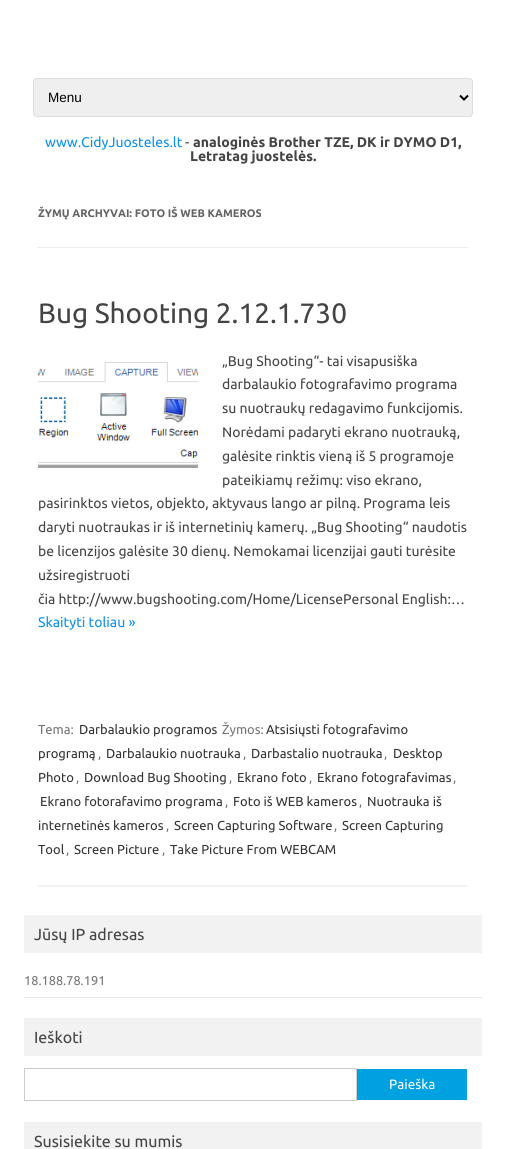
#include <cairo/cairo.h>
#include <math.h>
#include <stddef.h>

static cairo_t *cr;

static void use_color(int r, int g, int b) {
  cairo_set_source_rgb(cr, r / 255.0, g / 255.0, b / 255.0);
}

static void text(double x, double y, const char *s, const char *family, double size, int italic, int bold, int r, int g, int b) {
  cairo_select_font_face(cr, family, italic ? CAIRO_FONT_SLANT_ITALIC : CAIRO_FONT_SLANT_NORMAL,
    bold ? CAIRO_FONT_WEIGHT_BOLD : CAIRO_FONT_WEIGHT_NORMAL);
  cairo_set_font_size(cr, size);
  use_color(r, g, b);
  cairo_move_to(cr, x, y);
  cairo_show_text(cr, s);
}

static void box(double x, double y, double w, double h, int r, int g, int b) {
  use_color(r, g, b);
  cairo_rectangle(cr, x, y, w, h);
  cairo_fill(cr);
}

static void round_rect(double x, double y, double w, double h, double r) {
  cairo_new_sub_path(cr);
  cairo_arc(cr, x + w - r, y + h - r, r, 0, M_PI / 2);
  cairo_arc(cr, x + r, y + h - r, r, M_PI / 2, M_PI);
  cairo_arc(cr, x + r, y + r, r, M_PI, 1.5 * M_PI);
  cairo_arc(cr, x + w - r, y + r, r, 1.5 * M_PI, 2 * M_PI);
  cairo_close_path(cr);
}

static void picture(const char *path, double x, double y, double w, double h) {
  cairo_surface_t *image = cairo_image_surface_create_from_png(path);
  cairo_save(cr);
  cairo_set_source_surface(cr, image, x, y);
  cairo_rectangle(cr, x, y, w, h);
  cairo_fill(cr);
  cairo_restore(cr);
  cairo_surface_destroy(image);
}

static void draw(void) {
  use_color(255, 255, 255);
  cairo_paint(cr);
  use_color(239, 239, 239);
  round_rect(33.5, 78.5, 439, 38, 3.5);
  cairo_fill_preserve(cr);
  use_color(221, 221, 221);
  cairo_set_line_width(cr, 1);
  cairo_stroke(cr);
  cairo_new_path(cr);
  cairo_move_to(cr, 460, 95.5);
  cairo_line_to(cr, 464, 99.5);
  cairo_line_to(cr, 468, 95.5);
  use_color(0, 0, 0);
  cairo_set_line_width(cr, 2);
  cairo_stroke(cr);
  box(38, 247, 430, 1, 237, 237, 237);
  box(38, 885, 430, 2, 243, 243, 243);
  picture("img_01.png", 38, 362, 160, 106);
  box(24, 915, 458, 38, 242, 242, 242);
  box(24, 997, 458, 1, 233, 233, 233);
  box(24, 1018, 458, 38, 242, 242, 242);
  cairo_rectangle(cr, 24.5, 1068.5, 332, 32);
  use_color(204, 204, 204);
  cairo_set_line_width(cr, 1);
  cairo_stroke(cr);
  box(357, 1069, 110, 31, 0, 161, 224);
  box(24, 1122, 458, 27, 242, 242, 242);
  text(48, 102, "Menu", "Liberation Sans", 13.5, 0, 0, 0, 0, 0);
  text(45, 147, "www.CidyJuosteles.lt", "Ubuntu", 14, 0, 0, 11, 145, 234);
  text(185, 147, "-", "Ubuntu", 14, 0, 0, 68, 68, 68);
  text(193, 147, "analoginės Brother TZE, DK ir DYMO D1,", "Ubuntu", 14, 0, 1, 68, 68, 68);
  text(190, 161, "Letratag juostelės.", "Ubuntu", 14, 0, 1, 68, 68, 68);
  text(38, 217, "ŽYMŲ ARCHYVAI: FOTO IŠ WEB KAMEROS", "Ubuntu", 11, 0, 1, 99, 99, 99);
  text(38, 323, "Bug Shooting 2.12.1.730", "Ubuntu", 28, 0, 0, 68, 68, 68);
  text(222, 366, "„Bug Shooting“- tai visapusiška", "Ubuntu", 14, 0, 0, 68, 68, 68);
  text(222, 389, "darbalaukio fotografavimo programa", "Ubuntu", 14, 0, 0, 68, 68, 68);
  text(222, 413, "su nuotraukų redagavimo funkcijomis.", "Ubuntu", 14, 0, 0, 68, 68, 68);
  text(222, 437, "Norėdami padaryti ekrano nuotrauką,", "Ubuntu", 14, 0, 0, 68, 68, 68);
  text(222, 461, "galėsite rinktis vieną iš 5 programoje", "Ubuntu", 14, 0, 0, 68, 68, 68);
  text(222, 485, "pateikiamų režimų: viso ekrano,", "Ubuntu", 14, 0, 0, 68, 68, 68);
  text(38, 508, "pasirinktos vietos, objekto, aktyvaus lango ar pilną. Programa leis", "Ubuntu", 14, 0, 0, 68, 68, 68);
  text(38, 532, "daryti nuotraukas ir iš internetinių kamerų. „Bug Shooting“ naudotis", "Ubuntu", 14, 0, 0, 68, 68, 68);
  text(38, 556, "be licenzijos galėsite 30 dienų. Nemokamai licenzijai gauti turėsite", "Ubuntu", 14, 0, 0, 68, 68, 68);
  text(38, 580, "užsiregistruoti", "Ubuntu", 14, 0, 0, 68, 68, 68);
  text(38, 604, "čia http://www.bugshooting.com/Home/LicensePersonal English:…", "Ubuntu", 14, 0, 0, 68, 68, 68);
  text(38, 627, "Skaityti toliau »", "Ubuntu", 14, 0, 0, 11, 145, 234);
  text(38, 734, "Tema:", "Ubuntu", 13, 0, 0, 117, 117, 117);
  text(79, 734, "Darbalaukio programos", "Ubuntu", 13, 0, 0, 51, 51, 51);
  text(222, 734, "Žymos:", "Ubuntu", 13, 0, 0, 117, 117, 117);
  text(266, 734, "Atsisiųsti fotografavimo", "Ubuntu", 13, 0, 0, 51, 51, 51);
  text(38, 758, "programą", "Ubuntu", 13, 0, 0, 51, 51, 51);
  text(98, 758, ",", "Ubuntu", 13, 0, 0, 117, 117, 117);
  text(106, 758, "Darbalaukio nuotrauka", "Ubuntu", 13, 0, 0, 51, 51, 51);
  text(243, 758, ",", "Ubuntu", 13, 0, 0, 117, 117, 117);
  text(251, 758, "Darbastalio nuotrauka", "Ubuntu", 13, 0, 0, 51, 51, 51);
  text(384, 758, ",", "Ubuntu", 13, 0, 0, 117, 117, 117);
  text(393, 758, "Desktop", "Ubuntu", 13, 0, 0, 51, 51, 51);
  text(38, 782, "Photo", "Ubuntu", 13, 0, 0, 51, 51, 51);
  text(76, 782, ",", "Ubuntu", 13, 0, 0, 117, 117, 117);
  text(84, 782, "Download Bug Shooting", "Ubuntu", 13, 0, 0, 51, 51, 51);
  text(229, 782, ",", "Ubuntu", 13, 0, 0, 117, 117, 117);
  text(237, 782, "Ekrano foto", "Ubuntu", 13, 0, 0, 51, 51, 51);
  text(309, 782, ",", "Ubuntu", 13, 0, 0, 117, 117, 117);
  text(317, 782, "Ekrano fotografavimas", "Ubuntu", 13, 0, 0, 51, 51, 51);
  text(453, 782, ",", "Ubuntu", 13, 0, 0, 117, 117, 117);
  text(40, 806, "Ekrano fotorafavimo programa", "Ubuntu", 13, 0, 0, 51, 51, 51);
  text(225, 806, ",", "Ubuntu", 13, 0, 0, 117, 117, 117);
  text(233, 806, "Foto iš WEB kameros", "Ubuntu", 13, 0, 0, 51, 51, 51);
  text(359, 806, ",", "Ubuntu", 13, 0, 0, 117, 117, 117);
  text(367, 806, "Nuotrauka iš", "Ubuntu", 13, 0, 0, 51, 51, 51);
  text(38, 830, "internetinės kameros", "Ubuntu", 13, 0, 0, 51, 51, 51);
  text(166, 830, ",", "Ubuntu", 13, 0, 0, 117, 117, 117);
  text(174, 830, "Screen Capturing Software", "Ubuntu", 13, 0, 0, 51, 51, 51);
  text(334, 830, ",", "Ubuntu", 13, 0, 0, 117, 117, 117);
  text(342, 830, "Screen Capturing", "Ubuntu", 13, 0, 0, 51, 51, 51);
  text(38, 854, "Tool", "Ubuntu", 13, 0, 0, 51, 51, 51);
  text(66, 854, ",", "Ubuntu", 13, 0, 0, 117, 117, 117);
  text(74, 854, "Screen Picture", "Ubuntu", 13, 0, 0, 51, 51, 51);
  text(162, 854, ",", "Ubuntu", 13, 0, 0, 117, 117, 117);
  text(170, 854, "Take Picture From WEBCAM", "Ubuntu", 13, 0, 0, 51, 51, 51);
  text(34, 940, "Jūsų IP adresas", "Ubuntu", 16, 0, 0, 68, 68, 68);
  text(24, 985, "18.188.78.191", "Ubuntu", 12.75, 0, 0, 117, 117, 117);
  text(34, 1043, "Ieškoti", "Ubuntu", 16, 0, 0, 68, 68, 68);
  text(389, 1089, "Paieška", "Ubuntu", 13.5, 0, 0, 255, 255, 255);
  text(34, 1147, "Susisiekite su mumis", "Ubuntu", 16, 0, 0, 68, 68, 68);
}

int main(void) {
  cairo_surface_t *surface = cairo_image_surface_create(CAIRO_FORMAT_RGB24, 506, 1149);
  cr = cairo_create(surface);
  cairo_font_options_t *options = cairo_font_options_create();
  cairo_font_options_set_hint_metrics(options, CAIRO_HINT_METRICS_OFF);
  cairo_font_options_set_hint_style(options, CAIRO_HINT_STYLE_NONE);
  cairo_set_font_options(cr, options);
  cairo_set_miter_limit(cr, 4);
  draw();
  cairo_surface_write_to_png(surface, "out.png");
  cairo_font_options_destroy(options);
  cairo_destroy(cr);
  cairo_surface_destroy(surface);
  return 0;
}
